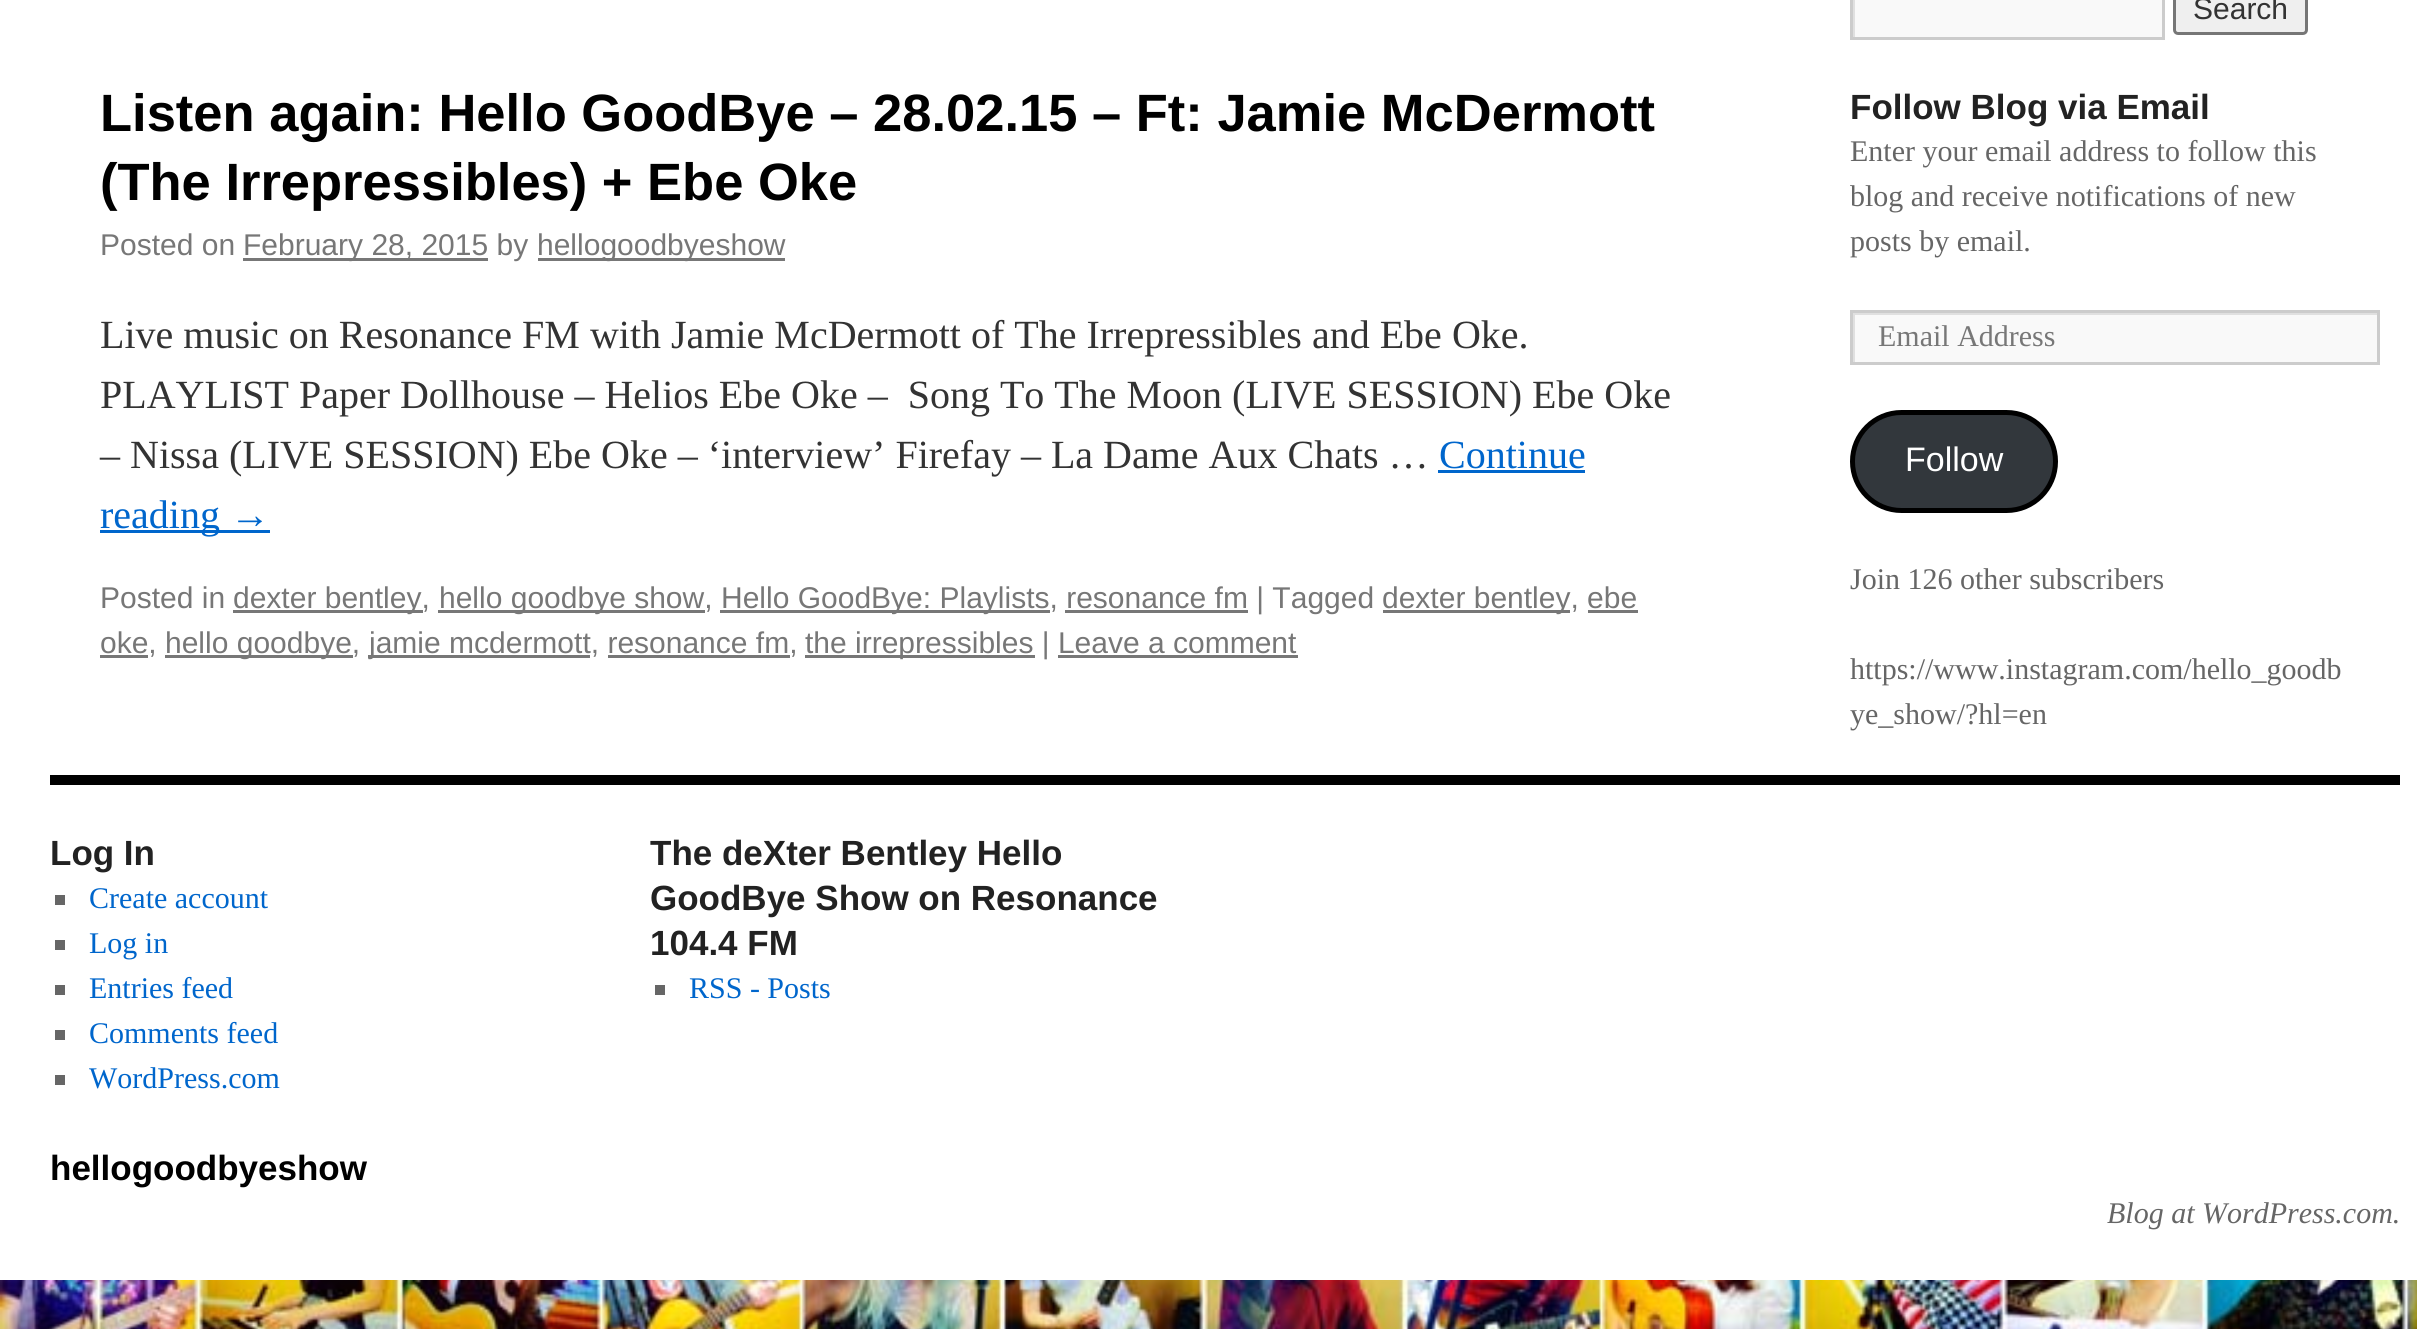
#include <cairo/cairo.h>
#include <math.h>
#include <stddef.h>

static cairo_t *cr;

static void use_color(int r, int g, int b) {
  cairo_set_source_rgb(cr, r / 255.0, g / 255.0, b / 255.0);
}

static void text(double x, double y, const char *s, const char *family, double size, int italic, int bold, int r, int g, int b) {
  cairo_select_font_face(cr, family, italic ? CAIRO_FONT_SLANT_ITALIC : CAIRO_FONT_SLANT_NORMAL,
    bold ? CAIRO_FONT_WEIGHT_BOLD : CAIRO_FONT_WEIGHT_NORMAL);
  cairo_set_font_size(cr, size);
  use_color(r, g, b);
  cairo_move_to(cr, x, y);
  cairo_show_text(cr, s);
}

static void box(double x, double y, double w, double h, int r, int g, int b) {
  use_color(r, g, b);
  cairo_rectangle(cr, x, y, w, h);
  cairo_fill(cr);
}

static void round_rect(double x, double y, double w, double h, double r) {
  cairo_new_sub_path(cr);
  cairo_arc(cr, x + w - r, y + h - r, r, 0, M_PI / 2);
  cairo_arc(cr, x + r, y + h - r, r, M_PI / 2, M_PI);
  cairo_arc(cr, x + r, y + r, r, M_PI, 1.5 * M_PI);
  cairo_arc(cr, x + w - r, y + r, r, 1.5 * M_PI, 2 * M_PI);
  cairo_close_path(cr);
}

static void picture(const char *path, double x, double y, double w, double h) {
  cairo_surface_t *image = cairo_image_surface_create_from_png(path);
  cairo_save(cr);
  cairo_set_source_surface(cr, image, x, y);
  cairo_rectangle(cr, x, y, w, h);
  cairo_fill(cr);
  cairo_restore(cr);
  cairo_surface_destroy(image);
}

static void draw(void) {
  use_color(255, 255, 255);
  cairo_paint(cr);
  picture("img_01.png", 0, 1280, 2417, 49);
  box(243, 258, 245, 3, 119, 119, 119);
  box(538, 258, 247, 3, 119, 119, 119);
  box(1438, 470, 147, 3, 0, 102, 204);
  box(100, 530, 170, 3, 0, 102, 204);
  box(233, 610, 190, 3, 119, 119, 119);
  box(438, 610, 267, 3, 119, 119, 119);
  box(720, 610, 330, 3, 119, 119, 119);
  box(1065, 610, 183, 3, 119, 119, 119);
  box(1383, 610, 187, 3, 119, 119, 119);
  box(1588, 610, 50, 3, 119, 119, 119);
  box(100, 655, 48, 3, 119, 119, 119);
  box(165, 655, 188, 3, 119, 119, 119);
  box(368, 655, 222, 3, 119, 119, 119);
  box(608, 655, 182, 3, 119, 119, 119);
  box(805, 655, 230, 3, 119, 119, 119);
  box(1058, 655, 240, 3, 119, 119, 119);
  box(1855, 0, 307, 37, 249, 249, 249);
  cairo_save(cr);
  cairo_rectangle(cr, 1853, 0, 310, 38);
  cairo_clip(cr);
  use_color(224, 224, 224);
  cairo_set_fill_rule(cr, CAIRO_FILL_RULE_EVEN_ODD);
  cairo_new_path(cr);
  cairo_move_to(cr, 1605, -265);
  cairo_line_to(cr, 2410, -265);
  cairo_line_to(cr, 2410, 285);
  cairo_line_to(cr, 1605, 285);
  cairo_close_path(cr);
  cairo_move_to(cr, 1855, -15);
  cairo_line_to(cr, 2165, -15);
  cairo_line_to(cr, 2165, 40);
  cairo_line_to(cr, 1855, 40);
  cairo_close_path(cr);
  cairo_fill(cr);
  cairo_restore(cr);
  cairo_rectangle(cr, 1851.5, -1.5, 312, 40);
  use_color(204, 204, 204);
  cairo_set_line_width(cr, 3);
  cairo_stroke(cr);
  use_color(239, 239, 239);
  round_rect(2174.5, -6.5, 132, 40, 3.5);
  cairo_fill_preserve(cr);
  use_color(118, 118, 118);
  cairo_stroke(cr);
  box(1855, 315, 522, 47, 249, 249, 249);
  cairo_save(cr);
  cairo_rectangle(cr, 1853, 313, 525, 50);
  cairo_clip(cr);
  use_color(224, 224, 224);
  cairo_set_fill_rule(cr, CAIRO_FILL_RULE_EVEN_ODD);
  cairo_new_path(cr);
  cairo_move_to(cr, 1605, 65);
  cairo_line_to(cr, 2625, 65);
  cairo_line_to(cr, 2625, 610);
  cairo_line_to(cr, 1605, 610);
  cairo_close_path(cr);
  cairo_move_to(cr, 1855, 315);
  cairo_line_to(cr, 2380, 315);
  cairo_line_to(cr, 2380, 365);
  cairo_line_to(cr, 1855, 365);
  cairo_close_path(cr);
  cairo_fill(cr);
  cairo_restore(cr);
  cairo_rectangle(cr, 1851.5, 311.5, 527, 52);
  use_color(204, 204, 204);
  cairo_stroke(cr);
  use_color(50, 55, 60);
  round_rect(1852.5, 412.5, 203, 98, 49);
  cairo_fill_preserve(cr);
  use_color(0, 0, 0);
  cairo_set_line_width(cr, 5);
  cairo_stroke(cr);
  box(50, 775, 2350, 10, 0, 0, 0);
  box(55, 895, 10, 10, 102, 102, 102);
  box(55, 940, 10, 10, 102, 102, 102);
  box(55, 985, 10, 10, 102, 102, 102);
  box(55, 1030, 10, 10, 102, 102, 102);
  box(55, 1075, 10, 10, 102, 102, 102);
  box(655, 985, 10, 10, 102, 102, 102);
  text(100, 131, "Listen again: Hello GoodBye – 28.02.15 – Ft: Jamie McDermott", "Liberation Sans", 52.5, 0, 1, 0, 0, 0);
  text(100, 200, "(The Irrepressibles) + Ebe Oke", "Liberation Sans", 52.5, 0, 1, 0, 0, 0);
  text(100, 255, "Posted on", "Liberation Sans", 30, 0, 0, 119, 119, 119);
  text(243, 255, "February 28, 2015 by", "Liberation Sans", 30, 0, 0, 119, 119, 119);
  text(537, 255, "hellogoodbyeshow", "Liberation Sans", 30, 0, 0, 119, 119, 119);
  text(100, 348, "Live music on Resonance FM with Jamie McDermott of The Irrepressibles and Ebe Oke.", "Liberation Serif", 40, 0, 0, 51, 51, 51);
  text(100, 408, "PLAYLIST Paper Dollhouse – Helios Ebe Oke –  Song To The Moon (LIVE SESSION) Ebe Oke", "Liberation Serif", 40, 0, 0, 51, 51, 51);
  text(100, 468, "– Nissa (LIVE SESSION) Ebe Oke – ‘interview’ Firefay – La Dame Aux Chats …", "Liberation Serif", 40, 0, 0, 51, 51, 51);
  text(1439, 468, "Continue", "Liberation Serif", 40, 0, 0, 0, 102, 204);
  text(100, 528, "reading →", "Liberation Serif", 40, 0, 0, 0, 102, 204);
  text(100, 608, "Posted in", "Liberation Sans", 30, 0, 0, 119, 119, 119);
  text(233, 608, "dexter bentley,", "Liberation Sans", 30, 0, 0, 119, 119, 119);
  text(439, 608, "hello goodbye show,", "Liberation Sans", 30, 0, 0, 119, 119, 119);
  text(721, 608, "Hello GoodBye: Playlists, resonance fm | Tagged", "Liberation Sans", 30, 0, 0, 119, 119, 119);
  text(1382, 608, "dexter bentley, ebe", "Liberation Sans", 30, 0, 0, 119, 119, 119);
  text(100, 653, "oke,", "Liberation Sans", 30, 0, 0, 119, 119, 119);
  text(165, 653, "hello goodbye,", "Liberation Sans", 30, 0, 0, 119, 119, 119);
  text(369, 653, "jamie mcdermott, resonance fm,", "Liberation Sans", 30, 0, 0, 119, 119, 119);
  text(805, 653, "the irrepressibles | Leave a comment", "Liberation Sans", 30, 0, 0, 119, 119, 119);
  text(2193, 19, "Search", "Liberation Sans", 30, 0, 0, 51, 51, 51);
  text(1850, 119, "Follow Blog via Email", "Liberation Sans", 35, 0, 1, 34, 34, 34);
  text(1850, 161, "Enter your email address to follow this", "Liberation Serif", 30, 0, 0, 102, 102, 102);
  text(1850, 206, "blog and receive notifications of new", "Liberation Serif", 30, 0, 0, 102, 102, 102);
  text(1850, 251, "posts by email.", "Liberation Serif", 30, 0, 0, 102, 102, 102);
  text(1878, 346, "Email Address", "Liberation Serif", 30, 0, 0, 119, 119, 119);
  text(1905, 471, "Follow", "Liberation Sans", 34, 0, 0, 255, 255, 255);
  text(1850, 589, "Join 126 other subscribers", "Liberation Serif", 30, 0, 0, 102, 102, 102);
  text(1850, 679, "https://www.instagram.com/hello_goodb", "Liberation Serif", 30, 0, 0, 102, 102, 102);
  text(1850, 724, "ye_show/?hl=en", "Liberation Serif", 30, 0, 0, 102, 102, 102);
  text(50, 865, "Log In", "Liberation Sans", 35, 0, 1, 34, 34, 34);
  text(89, 908, "Create account", "Liberation Serif", 30, 0, 0, 0, 102, 204);
  text(89, 953, "Log in", "Liberation Serif", 30, 0, 0, 0, 102, 204);
  text(89, 998, "Entries feed", "Liberation Serif", 30, 0, 0, 0, 102, 204);
  text(89, 1043, "Comments feed", "Liberation Serif", 30, 0, 0, 0, 102, 204);
  text(89, 1088, "WordPress.com", "Liberation Serif", 30, 0, 0, 0, 102, 204);
  text(650, 865, "The deXter Bentley Hello", "Liberation Sans", 35, 0, 1, 34, 34, 34);
  text(650, 910, "GoodBye Show on Resonance", "Liberation Sans", 35, 0, 1, 34, 34, 34);
  text(650, 955, "104.4 FM", "Liberation Sans", 35, 0, 1, 34, 34, 34);
  text(689, 998, "RSS - Posts", "Liberation Serif", 30, 0, 0, 0, 102, 204);
  text(50, 1180, "hellogoodbyeshow", "Liberation Sans", 35, 0, 1, 0, 0, 0);
  text(2107, 1223, "Blog at WordPress.com.", "Liberation Serif", 30, 1, 0, 102, 102, 102);
}

int main(void) {
  cairo_surface_t *surface = cairo_image_surface_create(CAIRO_FORMAT_RGB24, 2417, 1329);
  cr = cairo_create(surface);
  cairo_font_options_t *options = cairo_font_options_create();
  cairo_font_options_set_hint_metrics(options, CAIRO_HINT_METRICS_OFF);
  cairo_font_options_set_hint_style(options, CAIRO_HINT_STYLE_NONE);
  cairo_set_font_options(cr, options);
  cairo_set_miter_limit(cr, 4);
  draw();
  cairo_surface_write_to_png(surface, "out.png");
  cairo_font_options_destroy(options);
  cairo_destroy(cr);
  cairo_surface_destroy(surface);
  return 0;
}
